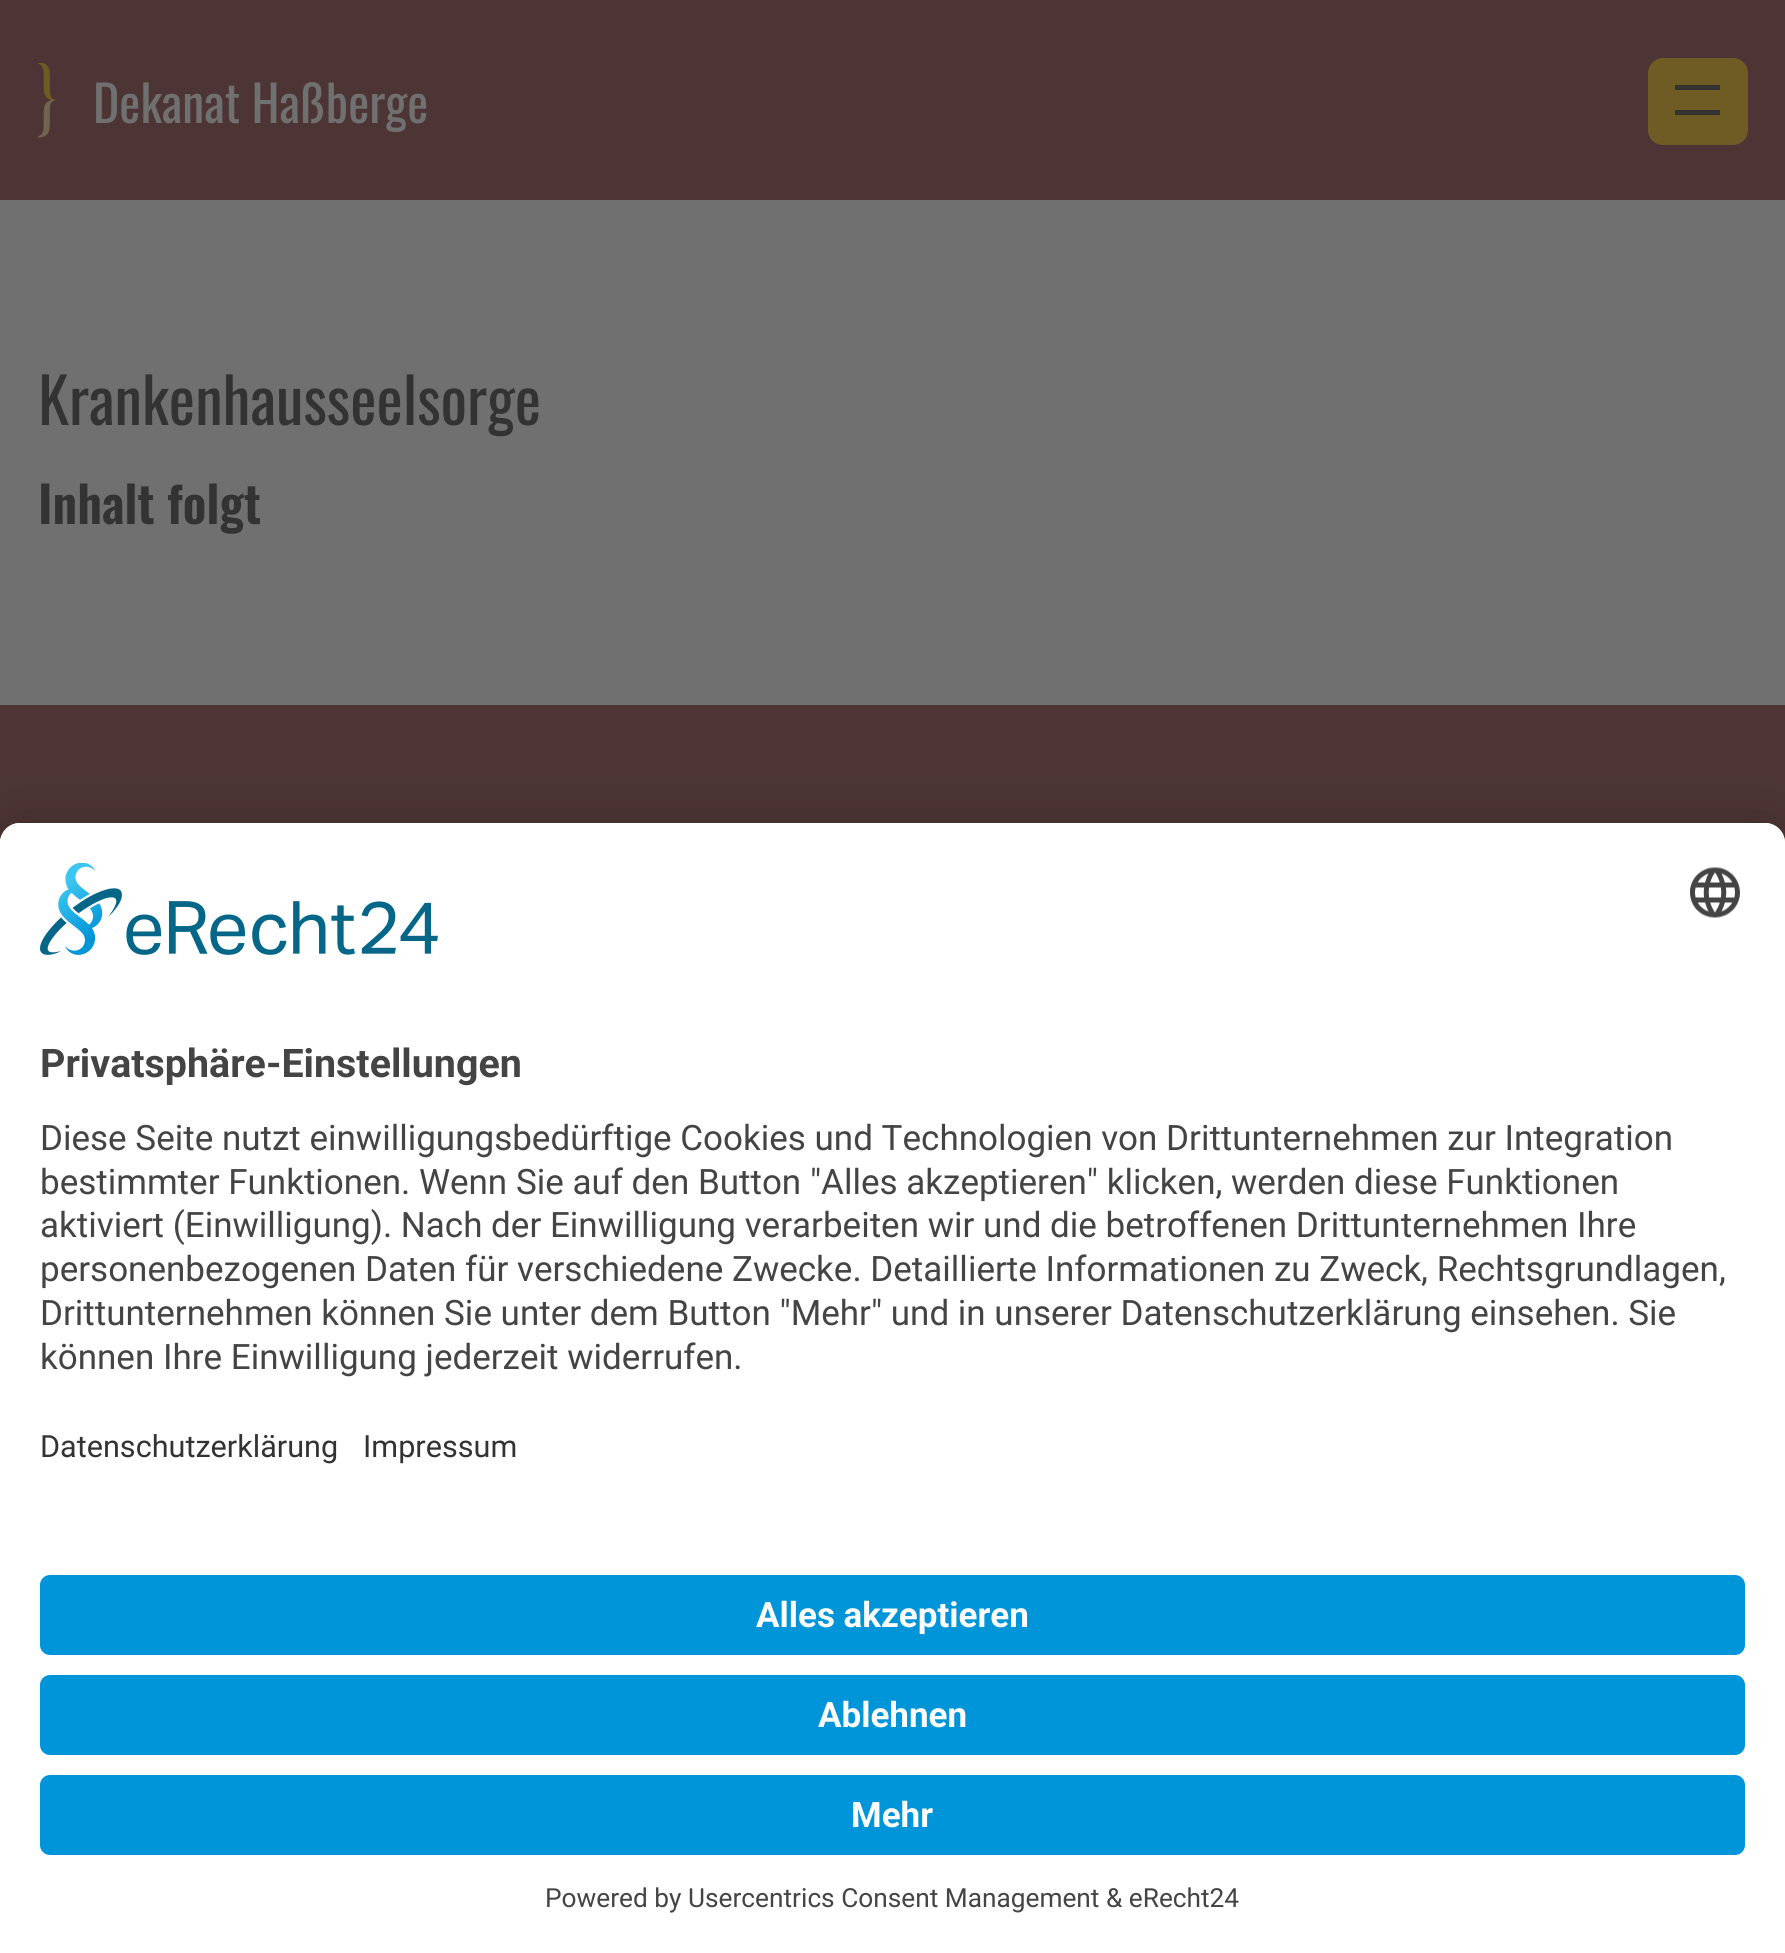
#include <cairo/cairo.h>
#include <math.h>
#include <stddef.h>

static cairo_t *cr;

static void use_color(int r, int g, int b) {
  cairo_set_source_rgb(cr, r / 255.0, g / 255.0, b / 255.0);
}

static void text(double x, double y, const char *s, const char *family, double size, int italic, int bold, int r, int g, int b) {
  cairo_select_font_face(cr, family, italic ? CAIRO_FONT_SLANT_ITALIC : CAIRO_FONT_SLANT_NORMAL,
    bold ? CAIRO_FONT_WEIGHT_BOLD : CAIRO_FONT_WEIGHT_NORMAL);
  cairo_set_font_size(cr, size);
  use_color(r, g, b);
  cairo_move_to(cr, x, y);
  cairo_show_text(cr, s);
}

static void box(double x, double y, double w, double h, int r, int g, int b) {
  use_color(r, g, b);
  cairo_rectangle(cr, x, y, w, h);
  cairo_fill(cr);
}

static void round_rect(double x, double y, double w, double h, double r) {
  cairo_new_sub_path(cr);
  cairo_arc(cr, x + w - r, y + h - r, r, 0, M_PI / 2);
  cairo_arc(cr, x + r, y + h - r, r, M_PI / 2, M_PI);
  cairo_arc(cr, x + r, y + r, r, M_PI, 1.5 * M_PI);
  cairo_arc(cr, x + w - r, y + r, r, 1.5 * M_PI, 2 * M_PI);
  cairo_close_path(cr);
}

static void shadow(double x, double y, double w, double h, double r, double blur, double alpha) {
  cairo_push_group_with_content(cr, CAIRO_CONTENT_ALPHA);
  cairo_set_operator(cr, CAIRO_OPERATOR_SOURCE);
  for (int i = 15; i >= -15 && fmin(w, h) + blur * i / 3 > 0; i -= 2) {
    double e = blur * i / 6;
    cairo_set_source_rgba(cr, 0, 0, 0, alpha * erfc((i - 1) / 8.5) / 2);
    round_rect(x - e, y - e, w + 2 * e, h + 2 * e, fmax(0, fmin(r + e + blur * .6, fmin(w, h) / 2 + e)));
    cairo_fill(cr);
  }
  cairo_pattern_t *soft = cairo_pop_group(cr);
  cairo_mask(cr, soft);
  cairo_pattern_destroy(soft);
}

static void picture(const char *path, double x, double y, double w, double h) {
  cairo_surface_t *image = cairo_image_surface_create_from_png(path);
  cairo_save(cr);
  cairo_set_source_surface(cr, image, x, y);
  cairo_rectangle(cr, x, y, w, h);
  cairo_fill(cr);
  cairo_restore(cr);
  cairo_surface_destroy(image);
}

static void draw(void) {
  use_color(112, 112, 112);
  cairo_paint(cr);
  box(0, 0, 1785, 200, 77, 53, 53);
  picture("img_01.png", 38, 63, 17, 75);
  use_color(111, 91, 36);
  round_rect(1648, 58, 100, 87, 15);
  cairo_fill(cr);
  box(1675, 85, 45, 5, 51, 51, 51);
  box(1675, 110, 45, 5, 51, 51, 51);
  box(0, 705, 1785, 138, 77, 53, 53);
  use_color(0, 0, 0);
  shadow(0, 873, 1785, 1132, 20, 35, 0.3);
  shadow(0, 835, 1785, 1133, 20, 32.5, 0.22);
  use_color(255, 255, 255);
  cairo_new_path(cr);
  cairo_move_to(cr, 20, 823);
  cairo_line_to(cr, 1765, 823);
  cairo_curve_to(cr, 1776, 823, 1785, 832, 1785, 843);
  cairo_line_to(cr, 1785, 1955);
  cairo_line_to(cr, 0, 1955);
  cairo_line_to(cr, 0, 843);
  cairo_curve_to(cr, 0, 832, 9, 823, 20, 823);
  cairo_close_path(cr);
  cairo_fill(cr);
  cairo_new_path(cr);
  cairo_move_to(cr, 20, 823);
  cairo_line_to(cr, 1765, 823);
  cairo_curve_to(cr, 1776, 823, 1785, 832, 1785, 843);
  cairo_line_to(cr, 1785, 1545);
  cairo_line_to(cr, 0, 1545);
  cairo_line_to(cr, 0, 843);
  cairo_curve_to(cr, 0, 832, 9, 823, 20, 823);
  cairo_close_path(cr);
  cairo_fill(cr);
  picture("img_02.png", 40, 863, 398, 92);
  picture("img_03.png", 1690, 867, 50, 51);
  use_color(0, 148, 216);
  round_rect(40, 1575, 1705, 80, 10);
  cairo_fill(cr);
  round_rect(40, 1675, 1705, 80, 10);
  cairo_fill(cr);
  round_rect(40, 1775, 1705, 80, 10);
  cairo_fill(cr);
  text(93, 123, "Dekanat Haßberge", "Oswald", 50, 0, 0, 112, 112, 112);
  text(38, 425, "Krankenhausseelsorge", "Oswald", 62.5, 0, 0, 51, 51, 51);
  text(38, 524, "Inhalt folgt", "Oswald SemiBold", 50, 0, 0, 51, 51, 51);
  text(40, 1077, "Privatsphäre-Einstellungen", "Roboto", 39.4, 0, 1, 68, 68, 68);
  text(40, 1150, "Diese Seite nutzt einwilligungsbedürftige Cookies und Technologien von Drittunternehmen zur Integration", "Roboto", 35, 0, 0, 68, 68, 68);
  text(40, 1194, "bestimmter Funktionen. Wenn Sie auf den Button \"Alles akzeptieren\" klicken, werden diese Funktionen", "Roboto", 35, 0, 0, 68, 68, 68);
  text(40, 1237, "aktiviert (Einwilligung). Nach der Einwilligung verarbeiten wir und die betroffenen Drittunternehmen Ihre", "Roboto", 35, 0, 0, 68, 68, 68);
  text(40, 1281, "personenbezogenen Daten für verschiedene Zwecke. Detaillierte Informationen zu Zweck, Rechtsgrundlagen,", "Roboto", 35, 0, 0, 68, 68, 68);
  text(40, 1325, "Drittunternehmen können Sie unter dem Button \"Mehr\" und in unserer Datenschutzerklärung einsehen. Sie", "Roboto", 35, 0, 0, 68, 68, 68);
  text(40, 1369, "können Ihre Einwilligung jederzeit widerrufen.", "Roboto", 35, 0, 0, 68, 68, 68);
  text(40, 1457, "Datenschutzerklärung", "Roboto", 30.6, 0, 0, 51, 51, 51);
  text(363, 1457, "Impressum", "Roboto", 30.6, 0, 0, 51, 51, 51);
  text(756, 1627, "Alles akzeptieren", "Roboto", 35, 0, 1, 255, 255, 255);
  text(818, 1727, "Ablehnen", "Roboto", 35, 0, 1, 255, 255, 255);
  text(851, 1827, "Mehr", "Roboto", 35, 0, 1, 255, 255, 255);
  text(545, 1907, "Powered by Usercentrics Consent Management & eRecht24", "Roboto", 26.25, 0, 0, 68, 68, 68);
}

int main(void) {
  cairo_surface_t *surface = cairo_image_surface_create(CAIRO_FORMAT_RGB24, 1785, 1953);
  cr = cairo_create(surface);
  cairo_font_options_t *options = cairo_font_options_create();
  cairo_font_options_set_hint_metrics(options, CAIRO_HINT_METRICS_OFF);
  cairo_font_options_set_hint_style(options, CAIRO_HINT_STYLE_NONE);
  cairo_set_font_options(cr, options);
  cairo_set_miter_limit(cr, 4);
  draw();
  cairo_surface_write_to_png(surface, "out.png");
  cairo_font_options_destroy(options);
  cairo_destroy(cr);
  cairo_surface_destroy(surface);
  return 0;
}
